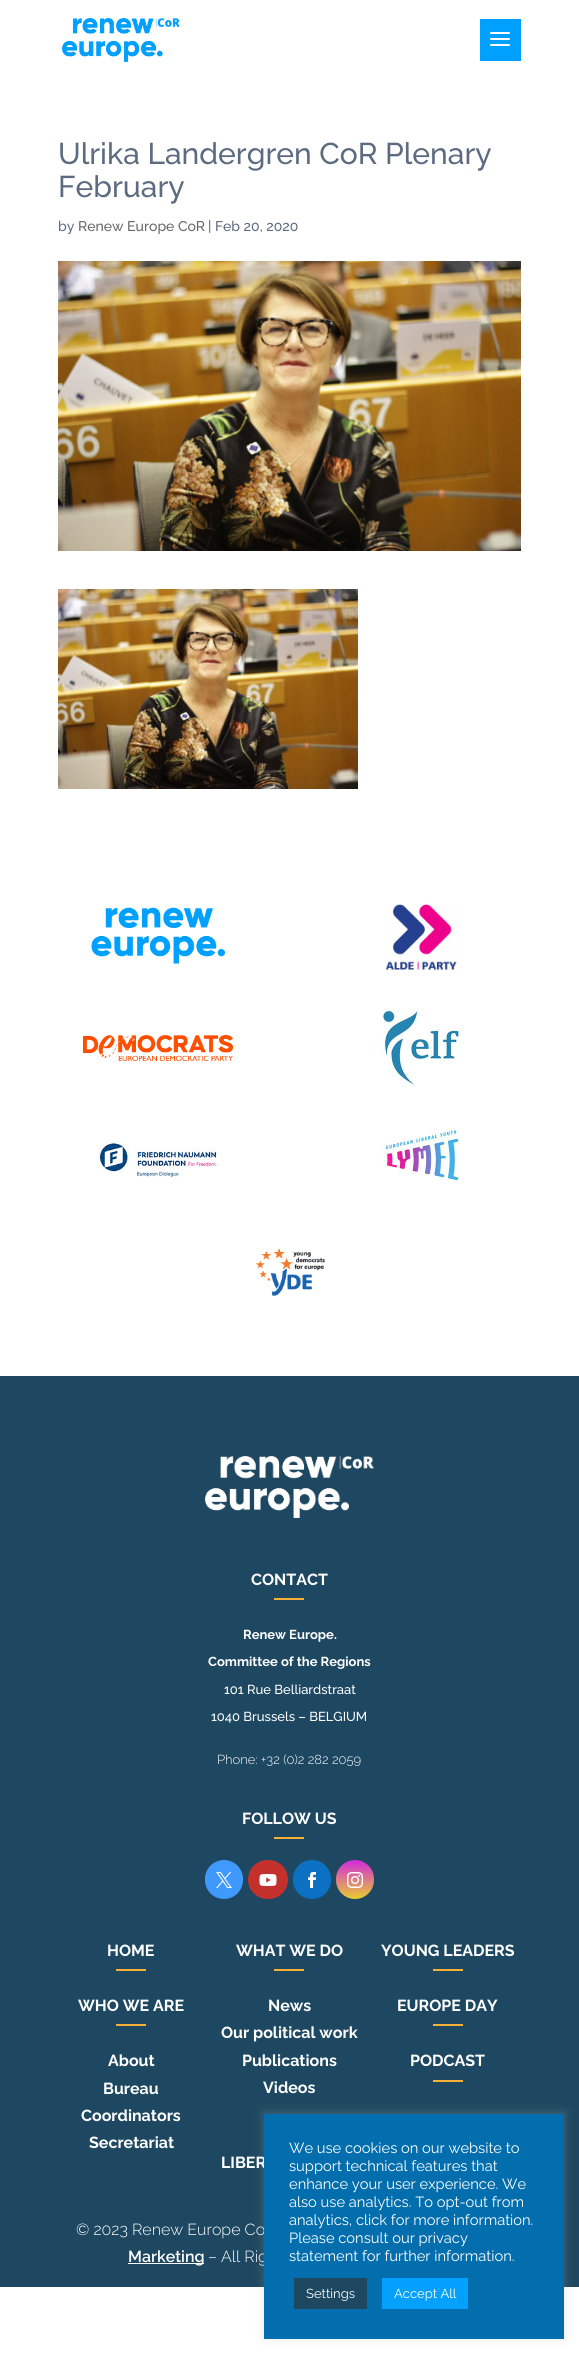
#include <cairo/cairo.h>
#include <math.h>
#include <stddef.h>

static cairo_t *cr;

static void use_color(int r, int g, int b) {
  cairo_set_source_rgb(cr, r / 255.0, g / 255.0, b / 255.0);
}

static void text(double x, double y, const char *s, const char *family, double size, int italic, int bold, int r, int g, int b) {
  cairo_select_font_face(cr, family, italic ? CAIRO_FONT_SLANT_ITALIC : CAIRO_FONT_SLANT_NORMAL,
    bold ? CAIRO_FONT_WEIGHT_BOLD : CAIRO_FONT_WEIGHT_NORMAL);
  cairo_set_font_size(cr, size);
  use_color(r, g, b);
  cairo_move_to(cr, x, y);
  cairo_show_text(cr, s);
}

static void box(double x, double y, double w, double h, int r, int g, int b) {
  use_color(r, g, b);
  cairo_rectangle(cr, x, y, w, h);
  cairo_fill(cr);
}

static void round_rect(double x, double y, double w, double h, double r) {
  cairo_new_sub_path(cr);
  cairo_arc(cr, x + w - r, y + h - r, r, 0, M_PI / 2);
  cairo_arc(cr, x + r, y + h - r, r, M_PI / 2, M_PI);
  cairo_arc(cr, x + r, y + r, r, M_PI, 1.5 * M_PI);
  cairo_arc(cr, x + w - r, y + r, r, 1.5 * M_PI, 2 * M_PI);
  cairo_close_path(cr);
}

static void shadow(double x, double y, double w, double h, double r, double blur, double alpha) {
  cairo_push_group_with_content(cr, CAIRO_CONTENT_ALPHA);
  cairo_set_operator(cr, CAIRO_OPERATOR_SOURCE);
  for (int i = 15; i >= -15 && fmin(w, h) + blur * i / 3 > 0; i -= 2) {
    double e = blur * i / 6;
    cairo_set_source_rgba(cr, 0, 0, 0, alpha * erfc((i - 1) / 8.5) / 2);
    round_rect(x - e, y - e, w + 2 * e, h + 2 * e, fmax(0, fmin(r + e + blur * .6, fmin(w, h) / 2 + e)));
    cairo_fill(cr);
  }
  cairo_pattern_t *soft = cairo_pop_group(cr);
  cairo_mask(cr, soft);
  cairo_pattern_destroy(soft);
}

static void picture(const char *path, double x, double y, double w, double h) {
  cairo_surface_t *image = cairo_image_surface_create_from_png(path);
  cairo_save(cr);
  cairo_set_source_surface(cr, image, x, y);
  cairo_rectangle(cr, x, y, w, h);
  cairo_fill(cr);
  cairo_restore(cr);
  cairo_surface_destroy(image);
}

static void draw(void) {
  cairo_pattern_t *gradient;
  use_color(255, 255, 255);
  cairo_paint(cr);
  picture("img_01.png", 62, 18, 118, 44);
  box(480, 19, 41, 42, 0, 161, 254);
  picture("img_02.png", 490, 32, 20, 14);
  picture("img_03.png", 58, 261, 463, 290);
  picture("img_04.png", 58, 589, 300, 200);
  picture("img_05.png", 91, 907, 134, 57);
  picture("img_06.png", 385, 903, 72, 67);
  picture("img_07.png", 83, 1035, 150, 26);
  picture("img_08.png", 381, 1008, 80, 79);
  picture("img_09.png", 97, 1143, 121, 34);
  picture("img_10.png", 381, 1128, 80, 56);
  picture("img_11.png", 256, 1248, 69, 48);
  box(0, 1376, 579, 911, 30, 72, 97);
  picture("img_12.png", 205, 1456, 169, 62);
  box(274, 1598, 30, 2, 250, 175, 55);
  box(274, 1837, 30, 2, 250, 175, 55);
  use_color(64, 153, 255);
  round_rect(205, 1860, 38, 39, 19);
  cairo_fill(cr);
  picture("img_13.png", 216, 1872, 16, 16);
  use_color(196, 48, 43);
  round_rect(248, 1860, 40, 39, 19.5);
  cairo_fill(cr);
  picture("img_14.png", 259, 1874, 18, 12);
  use_color(12, 113, 195);
  round_rect(293, 1860, 38, 39, 19);
  cairo_fill(cr);
  picture("img_15.png", 308, 1872, 8, 16);
  gradient = cairo_pattern_create_linear(355, 1860, 355, 1899);
  cairo_pattern_add_color_stop_rgba(gradient, 0.01, 0.824, 0.169, 0.859, 1);
  cairo_pattern_add_color_stop_rgba(gradient, 1, 0.91, 0.8, 0.188, 1);
  cairo_set_source(cr, gradient);
  cairo_pattern_destroy(gradient);
  round_rect(336, 1860, 38, 39, 19);
  cairo_fill(cr);
  picture("img_16.png", 347, 1872, 16, 16);
  box(116, 1969, 30, 2, 250, 175, 55);
  box(116, 2024, 30, 2, 250, 175, 55);
  box(274, 1969, 30, 2, 250, 175, 55);
  box(433, 1969, 30, 2, 250, 175, 55);
  box(433, 2024, 30, 2, 250, 175, 55);
  box(433, 2080, 30, 2, 250, 175, 55);
  box(128, 2263, 76, 1, 255, 255, 255);
  use_color(172, 171, 171);
  shadow(264, 2113, 300, 225, 0, 5, 0.3);
  text(58, 164, "Ulrika Landergren CoR Plenary", "Raleway Medium", 30, 0, 0, 92, 107, 128);
  text(58, 197, "February", "Raleway Medium", 30, 0, 0, 92, 107, 128);
  text(58, 231, "by", "Raleway Medium", 14, 0, 0, 92, 107, 128);
  text(78, 231, "Renew Europe CoR", "Raleway Medium", 14, 0, 0, 102, 102, 102);
  text(208, 231, "| Feb 20, 2020", "Raleway Medium", 14, 0, 0, 92, 107, 128);
  text(251, 1585, "CONTACT", "Raleway", 16, 0, 1, 255, 255, 255);
  text(243, 1639, "Renew Europe.", "Raleway", 13, 0, 1, 255, 255, 255);
  text(208, 1666, "Committee of the Regions", "Raleway", 13, 0, 1, 255, 255, 255);
  text(224, 1694, "101 Rue Belliardstraat", "Raleway Medium", 13, 0, 0, 255, 255, 255);
  text(211, 1721, "1040 Brussels – BELGIUM", "Raleway Medium", 13, 0, 0, 255, 255, 255);
  text(217, 1764, "Phone: +32 (0)2 282 2059", "Raleway Light", 13, 0, 0, 255, 255, 255);
  text(242, 1824, "FOLLOW US", "Raleway", 16, 0, 1, 255, 255, 255);
  text(107, 1956, "HOME", "Raleway", 16, 0, 1, 255, 255, 255);
  text(78, 2011, "WHO WE ARE", "Raleway", 16, 0, 1, 255, 255, 255);
  text(108, 2066, "About", "Raleway", 16, 0, 1, 255, 255, 255);
  text(103, 2094, "Bureau", "Raleway", 16, 0, 1, 255, 255, 255);
  text(81, 2121, "Coordinators", "Raleway", 16, 0, 1, 255, 255, 255);
  text(89, 2148, "Secretariat", "Raleway", 16, 0, 1, 255, 255, 255);
  text(236, 1956, "WHAT WE DO", "Raleway", 16, 0, 1, 255, 255, 255);
  text(268, 2011, "News", "Raleway", 16, 0, 1, 255, 255, 255);
  text(221, 2038, "Our political work", "Raleway", 16, 0, 1, 255, 255, 255);
  text(242, 2066, "Publications", "Raleway", 16, 0, 1, 255, 255, 255);
  text(263, 2093, "Videos", "Raleway", 16, 0, 1, 255, 255, 255);
  text(221, 2168, "LIBER", "Raleway", 16, 0, 1, 255, 255, 255);
  text(381, 1956, "YOUNG LEADERS", "Raleway", 16, 0, 1, 255, 255, 255);
  text(397, 2011, "EUROPE DAY", "Raleway", 16, 0, 1, 255, 255, 255);
  text(410, 2066, "PODCAST", "Raleway", 16, 0, 1, 255, 255, 255);
  text(76, 2235, "© 2023 Renew Europe Co", "Raleway Light", 16, 0, 0, 255, 255, 255);
  text(128, 2262, "Marketing", "Raleway SemiBold", 16, 0, 0, 255, 255, 255);
  text(208, 2262, "– All Rig", "Raleway Light", 16, 0, 0, 255, 255, 255);
  box(264, 2114, 300, 225, 2, 110, 173);
  text(289, 2153, "We use cookies on our website to", "Raleway", 14.7, 0, 0, 255, 255, 255);
  text(289, 2171, "support technical features that", "Raleway", 14.7, 0, 0, 255, 255, 255);
  text(289, 2189, "enhance your user experience. We", "Raleway", 14.7, 0, 0, 255, 255, 255);
  text(289, 2207, "also use analytics. To opt-out from", "Raleway", 14.7, 0, 0, 255, 255, 255);
  text(289, 2225, "analytics, click for more information.", "Raleway", 14.7, 0, 0, 255, 255, 255);
  text(289, 2243, "Please consult our privacy", "Raleway", 14.7, 0, 0, 255, 255, 255);
  text(289, 2261, "statement for further information.", "Raleway", 14.7, 0, 0, 255, 255, 255);
  box(294, 2278, 73, 31, 30, 72, 97);
  text(306, 2298, "Settings", "Raleway", 13, 0, 0, 255, 255, 255);
  box(382, 2278, 86, 31, 3, 160, 254);
  text(394, 2298, "Accept All", "Raleway", 13, 0, 0, 255, 255, 255);
}

int main(void) {
  cairo_surface_t *surface = cairo_image_surface_create(CAIRO_FORMAT_RGB24, 579, 2354);
  cr = cairo_create(surface);
  cairo_font_options_t *options = cairo_font_options_create();
  cairo_font_options_set_hint_metrics(options, CAIRO_HINT_METRICS_OFF);
  cairo_font_options_set_hint_style(options, CAIRO_HINT_STYLE_NONE);
  cairo_set_font_options(cr, options);
  cairo_set_miter_limit(cr, 4);
  draw();
  cairo_surface_write_to_png(surface, "out.png");
  cairo_font_options_destroy(options);
  cairo_destroy(cr);
  cairo_surface_destroy(surface);
  return 0;
}
